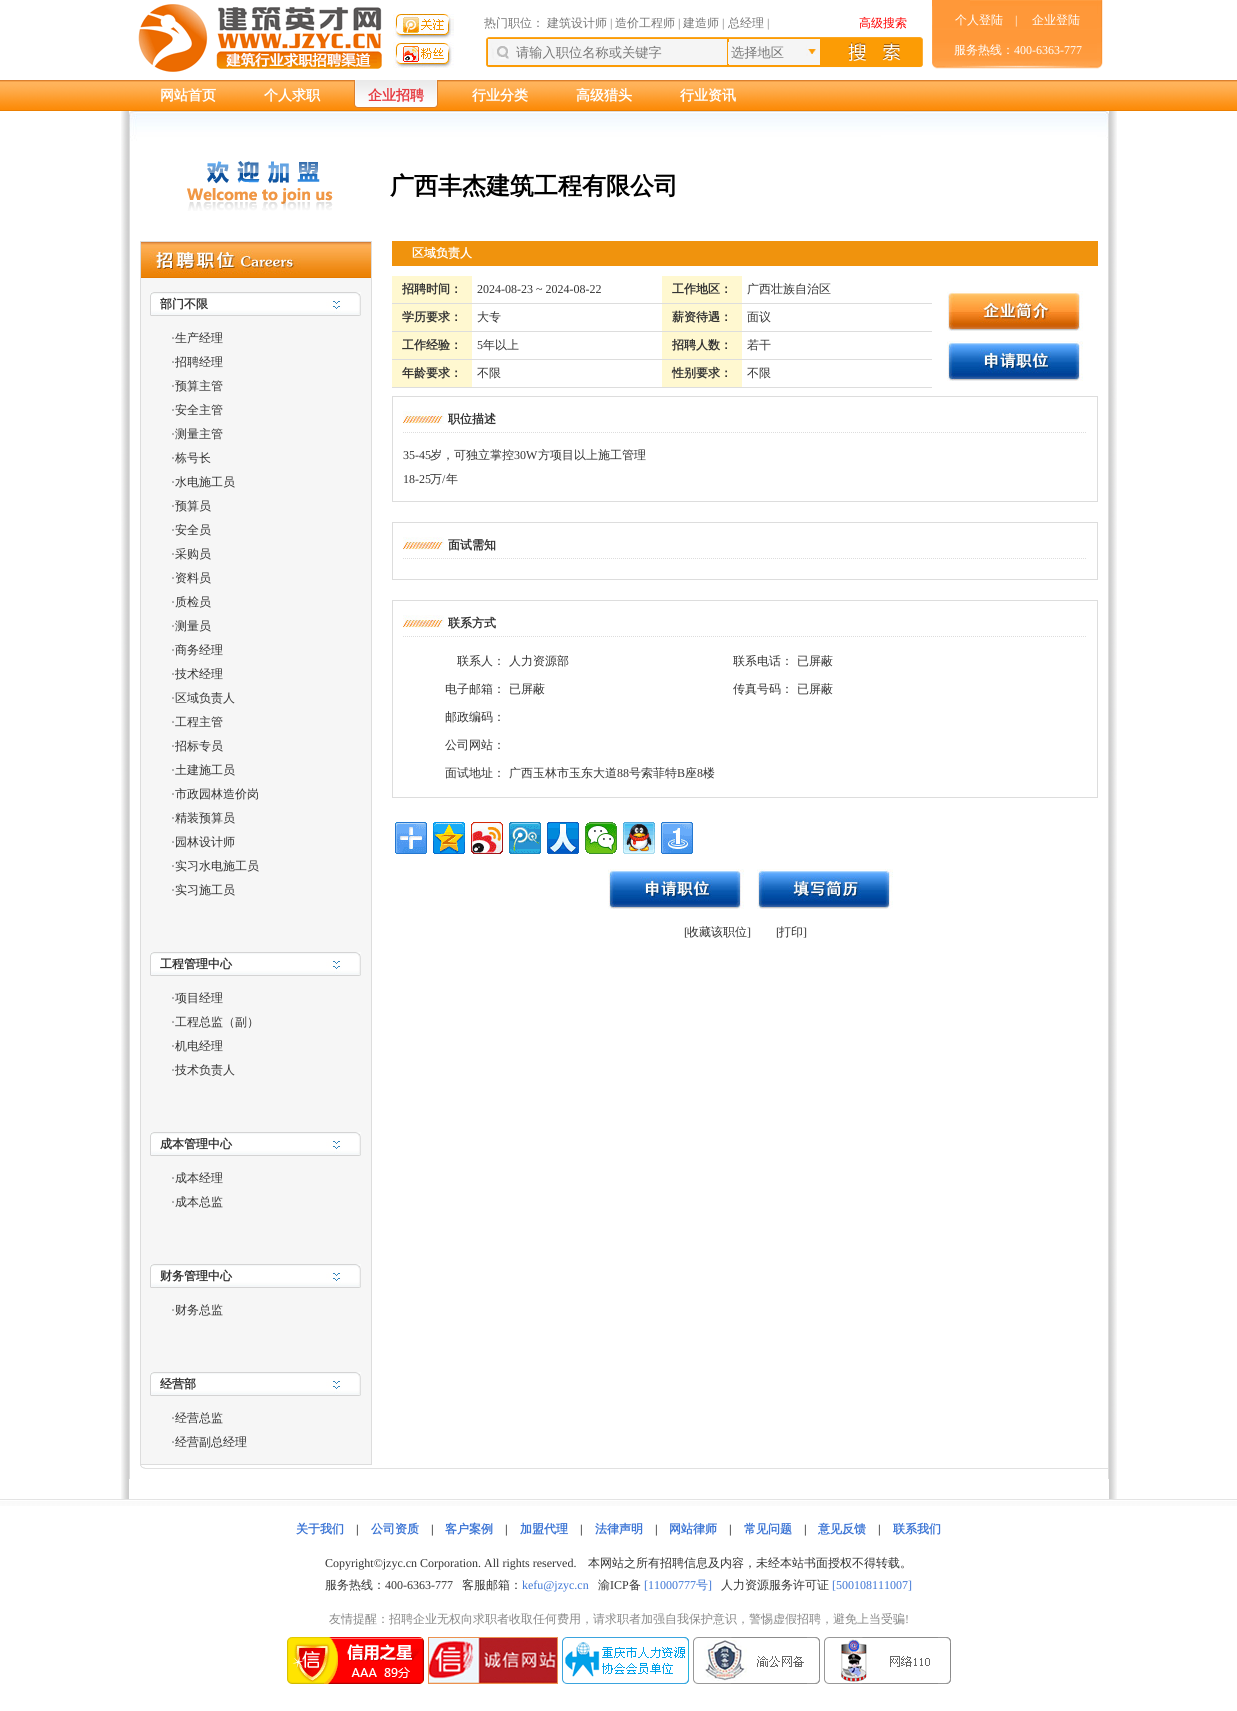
#include <cairo/cairo.h>
#include <math.h>
#include <stddef.h>

static cairo_t *cr;

static void use_color(int r, int g, int b) {
  cairo_set_source_rgb(cr, r / 255.0, g / 255.0, b / 255.0);
}

static void text(double x, double y, const char *s, const char *family, double size, int italic, int bold, int r, int g, int b) {
  cairo_select_font_face(cr, family, italic ? CAIRO_FONT_SLANT_ITALIC : CAIRO_FONT_SLANT_NORMAL,
    bold ? CAIRO_FONT_WEIGHT_BOLD : CAIRO_FONT_WEIGHT_NORMAL);
  cairo_set_font_size(cr, size);
  use_color(r, g, b);
  cairo_move_to(cr, x, y);
  cairo_show_text(cr, s);
}

static void box(double x, double y, double w, double h, int r, int g, int b) {
  use_color(r, g, b);
  cairo_rectangle(cr, x, y, w, h);
  cairo_fill(cr);
}

static void picture(const char *path, double x, double y, double w, double h) {
  cairo_surface_t *image = cairo_image_surface_create_from_png(path);
  cairo_save(cr);
  cairo_set_source_surface(cr, image, x, y);
  cairo_rectangle(cr, x, y, w, h);
  cairo_fill(cr);
  cairo_restore(cr);
  cairo_surface_destroy(image);
}

static void draw(void) {
  use_color(255, 255, 255);
  cairo_paint(cr);
  picture("img_01.png", 138, 4, 244, 68);
  picture("img_02.png", 393, 14, 61, 25);
  picture("img_03.png", 393, 42, 61, 26);
  picture("img_04.png", 486, 37, 437, 31);
  box(728, 42, 1, 22, 245, 245, 245);
  picture("img_05.png", 932, 0, 171, 69);
  picture("img_06.png", 0, 80, 1237, 31);
  picture("img_07.png", 354, 80, 84, 28);
  picture("img_08.png", 121, 111, 996, 1388);
  picture("img_09.png", 129, 111, 980, 30);
  box(1108, 131, 1, 1348, 221, 221, 221);
  box(129, 131, 1, 1348, 221, 221, 221);
  picture("img_10.png", 187, 161, 146, 50);
  box(141, 278, 230, 1186, 246, 246, 246);
  picture("img_11.png", 141, 242, 230, 36);
  cairo_rectangle(cr, 140.5, 241.5, 231, 1223);
  use_color(221, 221, 221);
  cairo_set_line_width(cr, 1);
  cairo_stroke(cr);
  picture("img_12.png", 150, 292, 211, 24);
  picture("img_12.png", 150, 952, 211, 24);
  picture("img_12.png", 150, 1132, 211, 24);
  picture("img_12.png", 150, 1264, 211, 24);
  picture("img_12.png", 150, 1372, 211, 24);
  box(392, 241, 706, 25, 240, 147, 13);
  box(392, 276, 80, 27, 255, 248, 208);
  box(392, 303, 540, 1, 221, 221, 221);
  box(662, 276, 80, 27, 255, 248, 208);
  picture("img_13.png", 947, 291, 136, 40);
  picture("img_14.png", 947, 341, 136, 40);
  box(392, 304, 80, 27, 255, 248, 208);
  box(392, 331, 540, 1, 221, 221, 221);
  box(662, 304, 80, 27, 255, 248, 208);
  box(392, 332, 80, 27, 255, 248, 208);
  box(392, 359, 540, 1, 221, 221, 221);
  box(662, 332, 80, 27, 255, 248, 208);
  box(392, 360, 80, 27, 255, 248, 208);
  box(392, 387, 540, 1, 221, 221, 221);
  box(662, 360, 80, 27, 255, 248, 208);
  cairo_rectangle(cr, 392.5, 396.5, 705, 105);
  use_color(221, 221, 221);
  cairo_stroke(cr);
  picture("img_15.png", 403, 411, 41, 13);
  cairo_new_path(cr);
  cairo_move_to(cr, 403, 432.5);
  cairo_line_to(cr, 1087, 432.5);
  cairo_set_dash(cr, (double[]){1, 1}, 2, 0);
  cairo_stroke(cr);
  cairo_rectangle(cr, 392.5, 522.5, 705, 57);
  cairo_set_dash(cr, NULL, 0, 0);
  cairo_stroke(cr);
  picture("img_15.png", 403, 537, 41, 13);
  cairo_new_path(cr);
  cairo_move_to(cr, 403, 558.5);
  cairo_line_to(cr, 1087, 558.5);
  cairo_set_dash(cr, (double[]){1, 1}, 2, 0);
  cairo_stroke(cr);
  cairo_rectangle(cr, 392.5, 600.5, 705, 197);
  cairo_set_dash(cr, NULL, 0, 0);
  cairo_stroke(cr);
  picture("img_15.png", 403, 615, 41, 13);
  cairo_new_path(cr);
  cairo_move_to(cr, 403, 636.5);
  cairo_line_to(cr, 1087, 636.5);
  cairo_set_dash(cr, (double[]){1, 1}, 2, 0);
  cairo_stroke(cr);
  picture("img_16.png", 395, 822, 32, 32);
  picture("img_17.png", 433, 822, 32, 32);
  picture("img_18.png", 471, 822, 32, 32);
  picture("img_19.png", 509, 822, 32, 32);
  picture("img_20.png", 547, 822, 32, 32);
  picture("img_21.png", 585, 822, 32, 32);
  picture("img_22.png", 623, 822, 32, 32);
  picture("img_23.png", 661, 822, 32, 32);
  picture("img_14.png", 608, 869, 136, 40);
  picture("img_24.png", 757, 869, 136, 40);
  picture("img_25.png", 140, 1465, 968, 4);
  picture("img_26.png", 0, 1499, 1237, 7);
  picture("img_27.png", 287, 1637, 137, 47);
  picture("img_28.png", 428, 1637, 130, 47);
  picture("img_29.png", 562, 1637, 127, 47);
  picture("img_30.png", 693, 1637, 127, 47);
  picture("img_31.png", 824, 1637, 127, 47);
  text(484, 27, "热门职位：", "WenQuanYi Zen Hei Medium", 12, 0, 0, 119, 119, 119);
  text(547, 27, "建筑设计师", "WenQuanYi Zen Hei Medium", 12, 0, 0, 119, 119, 119);
  text(610, 27, "|", "Liberation Serif", 12, 0, 0, 119, 119, 119);
  text(615, 27, "造价工程师", "WenQuanYi Zen Hei Medium", 12, 0, 0, 119, 119, 119);
  text(678, 27, "|", "Liberation Serif", 12, 0, 0, 119, 119, 119);
  text(683, 27, "建造师", "WenQuanYi Zen Hei Medium", 12, 0, 0, 119, 119, 119);
  text(722, 27, "|", "Liberation Serif", 12, 0, 0, 119, 119, 119);
  text(728, 27, "总经理", "WenQuanYi Zen Hei Medium", 12, 0, 0, 119, 119, 119);
  text(767, 27, "|", "Liberation Serif", 12, 0, 0, 119, 119, 119);
  text(859, 27, "高级搜索", "WenQuanYi Zen Hei Medium", 12, 0, 0, 255, 0, 0);
  text(516, 57, "请输入职位名称或关键字", "WenQuanYi Zen Hei Medium", 13.25, 0, 0, 119, 119, 119);
  text(731, 57, "选择地区", "WenQuanYi Zen Hei Medium", 13.25, 0, 0, 119, 119, 119);
  text(955, 24, "个人登陆", "WenQuanYi Zen Hei Medium", 12, 0, 0, 255, 255, 255);
  text(1015, 24, "|", "Liberation Serif", 12, 0, 0, 255, 255, 255);
  text(1032, 24, "企业登陆", "WenQuanYi Zen Hei Medium", 12, 0, 0, 255, 255, 255);
  text(954, 54, "服务热线：", "WenQuanYi Zen Hei Medium", 12, 0, 0, 255, 255, 255);
  text(1014, 54, "400-6363-777", "Liberation Serif", 12, 0, 0, 255, 255, 255);
  text(160, 100, "网站首页", "WenQuanYi Zen Hei", 14, 0, 1, 255, 255, 255);
  text(264, 100, "个人求职", "WenQuanYi Zen Hei", 14, 0, 1, 255, 255, 255);
  text(368, 100, "企业招聘", "WenQuanYi Zen Hei", 14, 0, 1, 230, 58, 64);
  text(472, 100, "行业分类", "WenQuanYi Zen Hei", 14, 0, 1, 255, 255, 255);
  text(576, 100, "高级猎头", "WenQuanYi Zen Hei", 14, 0, 1, 255, 255, 255);
  text(680, 100, "行业资讯", "WenQuanYi Zen Hei", 14, 0, 1, 255, 255, 255);
  text(390, 194, "广西丰杰建筑工程有限公司", "WenQuanYi Zen Hei", 24, 0, 1, 0, 0, 0);
  text(160, 308, "部门不限", "WenQuanYi Zen Hei", 12, 0, 1, 51, 51, 51);
  text(171, 342, "·", "Liberation Serif", 12, 0, 0, 51, 51, 51);
  text(175, 342, "生产经理", "WenQuanYi Zen Hei Medium", 12, 0, 0, 51, 51, 51);
  text(171, 366, "·", "Liberation Serif", 12, 0, 0, 51, 51, 51);
  text(175, 366, "招聘经理", "WenQuanYi Zen Hei Medium", 12, 0, 0, 51, 51, 51);
  text(171, 390, "·", "Liberation Serif", 12, 0, 0, 51, 51, 51);
  text(175, 390, "预算主管", "WenQuanYi Zen Hei Medium", 12, 0, 0, 51, 51, 51);
  text(171, 414, "·", "Liberation Serif", 12, 0, 0, 51, 51, 51);
  text(175, 414, "安全主管", "WenQuanYi Zen Hei Medium", 12, 0, 0, 51, 51, 51);
  text(171, 438, "·", "Liberation Serif", 12, 0, 0, 51, 51, 51);
  text(175, 438, "测量主管", "WenQuanYi Zen Hei Medium", 12, 0, 0, 51, 51, 51);
  text(171, 462, "·", "Liberation Serif", 12, 0, 0, 51, 51, 51);
  text(175, 462, "栋号长", "WenQuanYi Zen Hei Medium", 12, 0, 0, 51, 51, 51);
  text(171, 486, "·", "Liberation Serif", 12, 0, 0, 51, 51, 51);
  text(175, 486, "水电施工员", "WenQuanYi Zen Hei Medium", 12, 0, 0, 51, 51, 51);
  text(171, 510, "·", "Liberation Serif", 12, 0, 0, 51, 51, 51);
  text(175, 510, "预算员", "WenQuanYi Zen Hei Medium", 12, 0, 0, 51, 51, 51);
  text(171, 534, "·", "Liberation Serif", 12, 0, 0, 51, 51, 51);
  text(175, 534, "安全员", "WenQuanYi Zen Hei Medium", 12, 0, 0, 51, 51, 51);
  text(171, 558, "·", "Liberation Serif", 12, 0, 0, 51, 51, 51);
  text(175, 558, "采购员", "WenQuanYi Zen Hei Medium", 12, 0, 0, 51, 51, 51);
  text(171, 582, "·", "Liberation Serif", 12, 0, 0, 51, 51, 51);
  text(175, 582, "资料员", "WenQuanYi Zen Hei Medium", 12, 0, 0, 51, 51, 51);
  text(171, 606, "·", "Liberation Serif", 12, 0, 0, 51, 51, 51);
  text(175, 606, "质检员", "WenQuanYi Zen Hei Medium", 12, 0, 0, 51, 51, 51);
  text(171, 630, "·", "Liberation Serif", 12, 0, 0, 51, 51, 51);
  text(175, 630, "测量员", "WenQuanYi Zen Hei Medium", 12, 0, 0, 51, 51, 51);
  text(171, 654, "·", "Liberation Serif", 12, 0, 0, 51, 51, 51);
  text(175, 654, "商务经理", "WenQuanYi Zen Hei Medium", 12, 0, 0, 51, 51, 51);
  text(171, 678, "·", "Liberation Serif", 12, 0, 0, 51, 51, 51);
  text(175, 678, "技术经理", "WenQuanYi Zen Hei Medium", 12, 0, 0, 51, 51, 51);
  text(171, 702, "·", "Liberation Serif", 12, 0, 0, 51, 51, 51);
  text(175, 702, "区域负责人", "WenQuanYi Zen Hei Medium", 12, 0, 0, 51, 51, 51);
  text(171, 726, "·", "Liberation Serif", 12, 0, 0, 51, 51, 51);
  text(175, 726, "工程主管", "WenQuanYi Zen Hei Medium", 12, 0, 0, 51, 51, 51);
  text(171, 750, "·", "Liberation Serif", 12, 0, 0, 51, 51, 51);
  text(175, 750, "招标专员", "WenQuanYi Zen Hei Medium", 12, 0, 0, 51, 51, 51);
  text(171, 774, "·", "Liberation Serif", 12, 0, 0, 51, 51, 51);
  text(175, 774, "土建施工员", "WenQuanYi Zen Hei Medium", 12, 0, 0, 51, 51, 51);
  text(171, 798, "·", "Liberation Serif", 12, 0, 0, 51, 51, 51);
  text(175, 798, "市政园林造价岗", "WenQuanYi Zen Hei Medium", 12, 0, 0, 51, 51, 51);
  text(171, 822, "·", "Liberation Serif", 12, 0, 0, 51, 51, 51);
  text(175, 822, "精装预算员", "WenQuanYi Zen Hei Medium", 12, 0, 0, 51, 51, 51);
  text(171, 846, "·", "Liberation Serif", 12, 0, 0, 51, 51, 51);
  text(175, 846, "园林设计师", "WenQuanYi Zen Hei Medium", 12, 0, 0, 51, 51, 51);
  text(171, 870, "·", "Liberation Serif", 12, 0, 0, 51, 51, 51);
  text(175, 870, "实习水电施工员", "WenQuanYi Zen Hei Medium", 12, 0, 0, 51, 51, 51);
  text(171, 894, "·", "Liberation Serif", 12, 0, 0, 51, 51, 51);
  text(175, 894, "实习施工员", "WenQuanYi Zen Hei Medium", 12, 0, 0, 51, 51, 51);
  text(160, 968, "工程管理中心", "WenQuanYi Zen Hei", 12, 0, 1, 51, 51, 51);
  text(171, 1002, "·", "Liberation Serif", 12, 0, 0, 51, 51, 51);
  text(175, 1002, "项目经理", "WenQuanYi Zen Hei Medium", 12, 0, 0, 51, 51, 51);
  text(171, 1026, "·", "Liberation Serif", 12, 0, 0, 51, 51, 51);
  text(175, 1026, "工程总监（副）", "WenQuanYi Zen Hei Medium", 12, 0, 0, 51, 51, 51);
  text(171, 1050, "·", "Liberation Serif", 12, 0, 0, 51, 51, 51);
  text(175, 1050, "机电经理", "WenQuanYi Zen Hei Medium", 12, 0, 0, 51, 51, 51);
  text(171, 1074, "·", "Liberation Serif", 12, 0, 0, 51, 51, 51);
  text(175, 1074, "技术负责人", "WenQuanYi Zen Hei Medium", 12, 0, 0, 51, 51, 51);
  text(160, 1148, "成本管理中心", "WenQuanYi Zen Hei", 12, 0, 1, 51, 51, 51);
  text(171, 1182, "·", "Liberation Serif", 12, 0, 0, 51, 51, 51);
  text(175, 1182, "成本经理", "WenQuanYi Zen Hei Medium", 12, 0, 0, 51, 51, 51);
  text(171, 1206, "·", "Liberation Serif", 12, 0, 0, 51, 51, 51);
  text(175, 1206, "成本总监", "WenQuanYi Zen Hei Medium", 12, 0, 0, 51, 51, 51);
  text(160, 1280, "财务管理中心", "WenQuanYi Zen Hei", 12, 0, 1, 51, 51, 51);
  text(171, 1314, "·", "Liberation Serif", 12, 0, 0, 51, 51, 51);
  text(175, 1314, "财务总监", "WenQuanYi Zen Hei Medium", 12, 0, 0, 51, 51, 51);
  text(160, 1388, "经营部", "WenQuanYi Zen Hei", 12, 0, 1, 51, 51, 51);
  text(171, 1422, "·", "Liberation Serif", 12, 0, 0, 51, 51, 51);
  text(175, 1422, "经营总监", "WenQuanYi Zen Hei Medium", 12, 0, 0, 51, 51, 51);
  text(171, 1446, "·", "Liberation Serif", 12, 0, 0, 51, 51, 51);
  text(175, 1446, "经营副总经理", "WenQuanYi Zen Hei Medium", 12, 0, 0, 51, 51, 51);
  text(412, 257, "区域负责人", "WenQuanYi Zen Hei", 12, 0, 1, 255, 255, 255);
  text(402, 293, "招聘时间：", "WenQuanYi Zen Hei", 12, 0, 1, 51, 51, 51);
  text(477, 293, "2024-08-23 ~ 2024-08-22", "Liberation Serif", 12, 0, 0, 51, 51, 51);
  text(672, 293, "工作地区：", "WenQuanYi Zen Hei", 12, 0, 1, 51, 51, 51);
  text(747, 293, "广西壮族自治区", "WenQuanYi Zen Hei Medium", 12, 0, 0, 51, 51, 51);
  text(402, 321, "学历要求：", "WenQuanYi Zen Hei", 12, 0, 1, 51, 51, 51);
  text(477, 321, "大专", "WenQuanYi Zen Hei Medium", 12, 0, 0, 51, 51, 51);
  text(672, 321, "薪资待遇：", "WenQuanYi Zen Hei", 12, 0, 1, 51, 51, 51);
  text(747, 321, "面议", "WenQuanYi Zen Hei Medium", 12, 0, 0, 51, 51, 51);
  text(402, 349, "工作经验：", "WenQuanYi Zen Hei", 12, 0, 1, 51, 51, 51);
  text(477, 349, "5", "Liberation Serif", 12, 0, 0, 51, 51, 51);
  text(483, 349, "年以上", "WenQuanYi Zen Hei Medium", 12, 0, 0, 51, 51, 51);
  text(672, 349, "招聘人数：", "WenQuanYi Zen Hei", 12, 0, 1, 51, 51, 51);
  text(747, 349, "若干", "WenQuanYi Zen Hei Medium", 12, 0, 0, 51, 51, 51);
  text(402, 377, "年龄要求：", "WenQuanYi Zen Hei", 12, 0, 1, 51, 51, 51);
  text(477, 377, "不限", "WenQuanYi Zen Hei Medium", 12, 0, 0, 51, 51, 51);
  text(672, 377, "性别要求：", "WenQuanYi Zen Hei", 12, 0, 1, 51, 51, 51);
  text(747, 377, "不限", "WenQuanYi Zen Hei Medium", 12, 0, 0, 51, 51, 51);
  text(448, 423, "职位描述", "WenQuanYi Zen Hei", 12, 0, 1, 51, 51, 51);
  text(403, 459, "35-45", "Liberation Serif", 12, 0, 0, 51, 51, 51);
  text(430, 459, "岁，可独立掌控", "WenQuanYi Zen Hei Medium", 12, 0, 0, 51, 51, 51);
  text(514, 459, "30W", "Liberation Serif", 12, 0, 0, 51, 51, 51);
  text(538, 459, "方项目以上施工管理", "WenQuanYi Zen Hei Medium", 12, 0, 0, 51, 51, 51);
  text(403, 483, "18-25", "Liberation Serif", 12, 0, 0, 51, 51, 51);
  text(430, 483, "万", "WenQuanYi Zen Hei Medium", 12, 0, 0, 51, 51, 51);
  text(442, 483, "/", "Liberation Serif", 12, 0, 0, 51, 51, 51);
  text(446, 483, "年", "WenQuanYi Zen Hei Medium", 12, 0, 0, 51, 51, 51);
  text(448, 549, "面试需知", "WenQuanYi Zen Hei", 12, 0, 1, 51, 51, 51);
  text(448, 627, "联系方式", "WenQuanYi Zen Hei", 12, 0, 1, 51, 51, 51);
  text(457, 665, "联系人：", "WenQuanYi Zen Hei Medium", 12, 0, 0, 51, 51, 51);
  text(509, 665, "人力资源部", "WenQuanYi Zen Hei Medium", 12, 0, 0, 51, 51, 51);
  text(733, 665, "联系电话：", "WenQuanYi Zen Hei Medium", 12, 0, 0, 51, 51, 51);
  text(797, 665, "已屏蔽", "WenQuanYi Zen Hei Medium", 12, 0, 0, 51, 51, 51);
  text(445, 693, "电子邮箱：", "WenQuanYi Zen Hei Medium", 12, 0, 0, 51, 51, 51);
  text(509, 693, "已屏蔽", "WenQuanYi Zen Hei Medium", 12, 0, 0, 51, 51, 51);
  text(733, 693, "传真号码：", "WenQuanYi Zen Hei Medium", 12, 0, 0, 51, 51, 51);
  text(797, 693, "已屏蔽", "WenQuanYi Zen Hei Medium", 12, 0, 0, 51, 51, 51);
  text(445, 721, "邮政编码：", "WenQuanYi Zen Hei Medium", 12, 0, 0, 51, 51, 51);
  text(445, 749, "公司网站：", "WenQuanYi Zen Hei Medium", 12, 0, 0, 51, 51, 51);
  text(445, 777, "面试地址：", "WenQuanYi Zen Hei Medium", 12, 0, 0, 51, 51, 51);
  text(509, 777, "广西玉林市玉东大道", "WenQuanYi Zen Hei Medium", 12, 0, 0, 51, 51, 51);
  text(617, 777, "88", "Liberation Serif", 12, 0, 0, 51, 51, 51);
  text(629, 777, "号索菲特", "WenQuanYi Zen Hei Medium", 12, 0, 0, 51, 51, 51);
  text(677, 777, "B", "Liberation Serif", 12, 0, 0, 51, 51, 51);
  text(685, 777, "座", "WenQuanYi Zen Hei Medium", 12, 0, 0, 51, 51, 51);
  text(697, 777, "8", "Liberation Serif", 12, 0, 0, 51, 51, 51);
  text(703, 777, "楼", "WenQuanYi Zen Hei Medium", 12, 0, 0, 51, 51, 51);
  text(684, 936, "[", "Liberation Serif", 12, 0, 0, 51, 51, 51);
  text(687, 936, "收藏该职位", "WenQuanYi Zen Hei Medium", 12, 0, 0, 51, 51, 51);
  text(747, 936, "]", "Liberation Serif", 12, 0, 0, 51, 51, 51);
  text(776, 936, "[", "Liberation Serif", 12, 0, 0, 51, 51, 51);
  text(779, 936, "打印", "WenQuanYi Zen Hei Medium", 12, 0, 0, 51, 51, 51);
  text(803, 936, "]", "Liberation Serif", 12, 0, 0, 51, 51, 51);
  text(296, 1533, "关于我们", "WenQuanYi Zen Hei", 12, 0, 1, 60, 117, 213);
  text(356, 1533, "|", "Liberation Serif", 12, 0, 1, 51, 51, 51);
  text(371, 1533, "公司资质", "WenQuanYi Zen Hei", 12, 0, 1, 60, 117, 213);
  text(431, 1533, "|", "Liberation Serif", 12, 0, 1, 51, 51, 51);
  text(445, 1533, "客户案例", "WenQuanYi Zen Hei", 12, 0, 1, 60, 117, 213);
  text(505, 1533, "|", "Liberation Serif", 12, 0, 1, 51, 51, 51);
  text(520, 1533, "加盟代理", "WenQuanYi Zen Hei", 12, 0, 1, 60, 117, 213);
  text(580, 1533, "|", "Liberation Serif", 12, 0, 1, 51, 51, 51);
  text(595, 1533, "法律声明", "WenQuanYi Zen Hei", 12, 0, 1, 60, 117, 213);
  text(655, 1533, "|", "Liberation Serif", 12, 0, 1, 51, 51, 51);
  text(669, 1533, "网站律师", "WenQuanYi Zen Hei", 12, 0, 1, 60, 117, 213);
  text(729, 1533, "|", "Liberation Serif", 12, 0, 1, 51, 51, 51);
  text(744, 1533, "常见问题", "WenQuanYi Zen Hei", 12, 0, 1, 60, 117, 213);
  text(804, 1533, "|", "Liberation Serif", 12, 0, 1, 51, 51, 51);
  text(818, 1533, "意见反馈", "WenQuanYi Zen Hei", 12, 0, 1, 60, 117, 213);
  text(878, 1533, "|", "Liberation Serif", 12, 0, 1, 51, 51, 51);
  text(893, 1533, "联系我们", "WenQuanYi Zen Hei", 12, 0, 1, 60, 117, 213);
  text(325, 1567, "Copyright©jzyc.cn Corporation. All rights reserved.", "Liberation Serif", 12, 0, 0, 51, 51, 51);
  text(588, 1567, "本网站之所有招聘信息及内容，未经本站书面授权不得转载。", "WenQuanYi Zen Hei Medium", 12, 0, 0, 51, 51, 51);
  text(325, 1589, "服务热线：", "WenQuanYi Zen Hei Medium", 12, 0, 0, 51, 51, 51);
  text(385, 1589, "400-6363-777", "Liberation Serif", 12, 0, 0, 51, 51, 51);
  text(462, 1589, "客服邮箱：", "WenQuanYi Zen Hei Medium", 12, 0, 0, 51, 51, 51);
  text(522, 1589, "kefu@jzyc.cn", "Liberation Serif", 12, 0, 0, 60, 117, 213);
  text(598, 1589, "渝", "WenQuanYi Zen Hei Medium", 12, 0, 0, 51, 51, 51);
  text(610, 1589, "ICP", "Liberation Serif", 12, 0, 0, 51, 51, 51);
  text(629, 1589, "备", "WenQuanYi Zen Hei Medium", 12, 0, 0, 51, 51, 51);
  text(644, 1589, "[11000777", "Liberation Serif", 12, 0, 0, 60, 117, 213);
  text(696, 1589, "号", "WenQuanYi Zen Hei Medium", 12, 0, 0, 60, 117, 213);
  text(708, 1589, "]", "Liberation Serif", 12, 0, 0, 60, 117, 213);
  text(721, 1589, "人力资源服务许可证", "WenQuanYi Zen Hei Medium", 12, 0, 0, 51, 51, 51);
  text(832, 1589, "[500108111007]", "Liberation Serif", 12, 0, 0, 60, 117, 213);
  text(329, 1623, "友情提醒：招聘企业无权向求职者收取任何费用，请求职者加强自我保护意识，警惕虚假招聘，避免上当受骗", "WenQuanYi Zen Hei Medium", 12, 0, 0, 136, 136, 136);
  text(905, 1623, "!", "Liberation Serif", 12, 0, 0, 136, 136, 136);
}

int main(void) {
  cairo_surface_t *surface = cairo_image_surface_create(CAIRO_FORMAT_RGB24, 1237, 1711);
  cr = cairo_create(surface);
  cairo_font_options_t *options = cairo_font_options_create();
  cairo_font_options_set_hint_metrics(options, CAIRO_HINT_METRICS_OFF);
  cairo_font_options_set_hint_style(options, CAIRO_HINT_STYLE_NONE);
  cairo_set_font_options(cr, options);
  cairo_set_miter_limit(cr, 4);
  draw();
  cairo_surface_write_to_png(surface, "out.png");
  cairo_font_options_destroy(options);
  cairo_destroy(cr);
  cairo_surface_destroy(surface);
  return 0;
}
